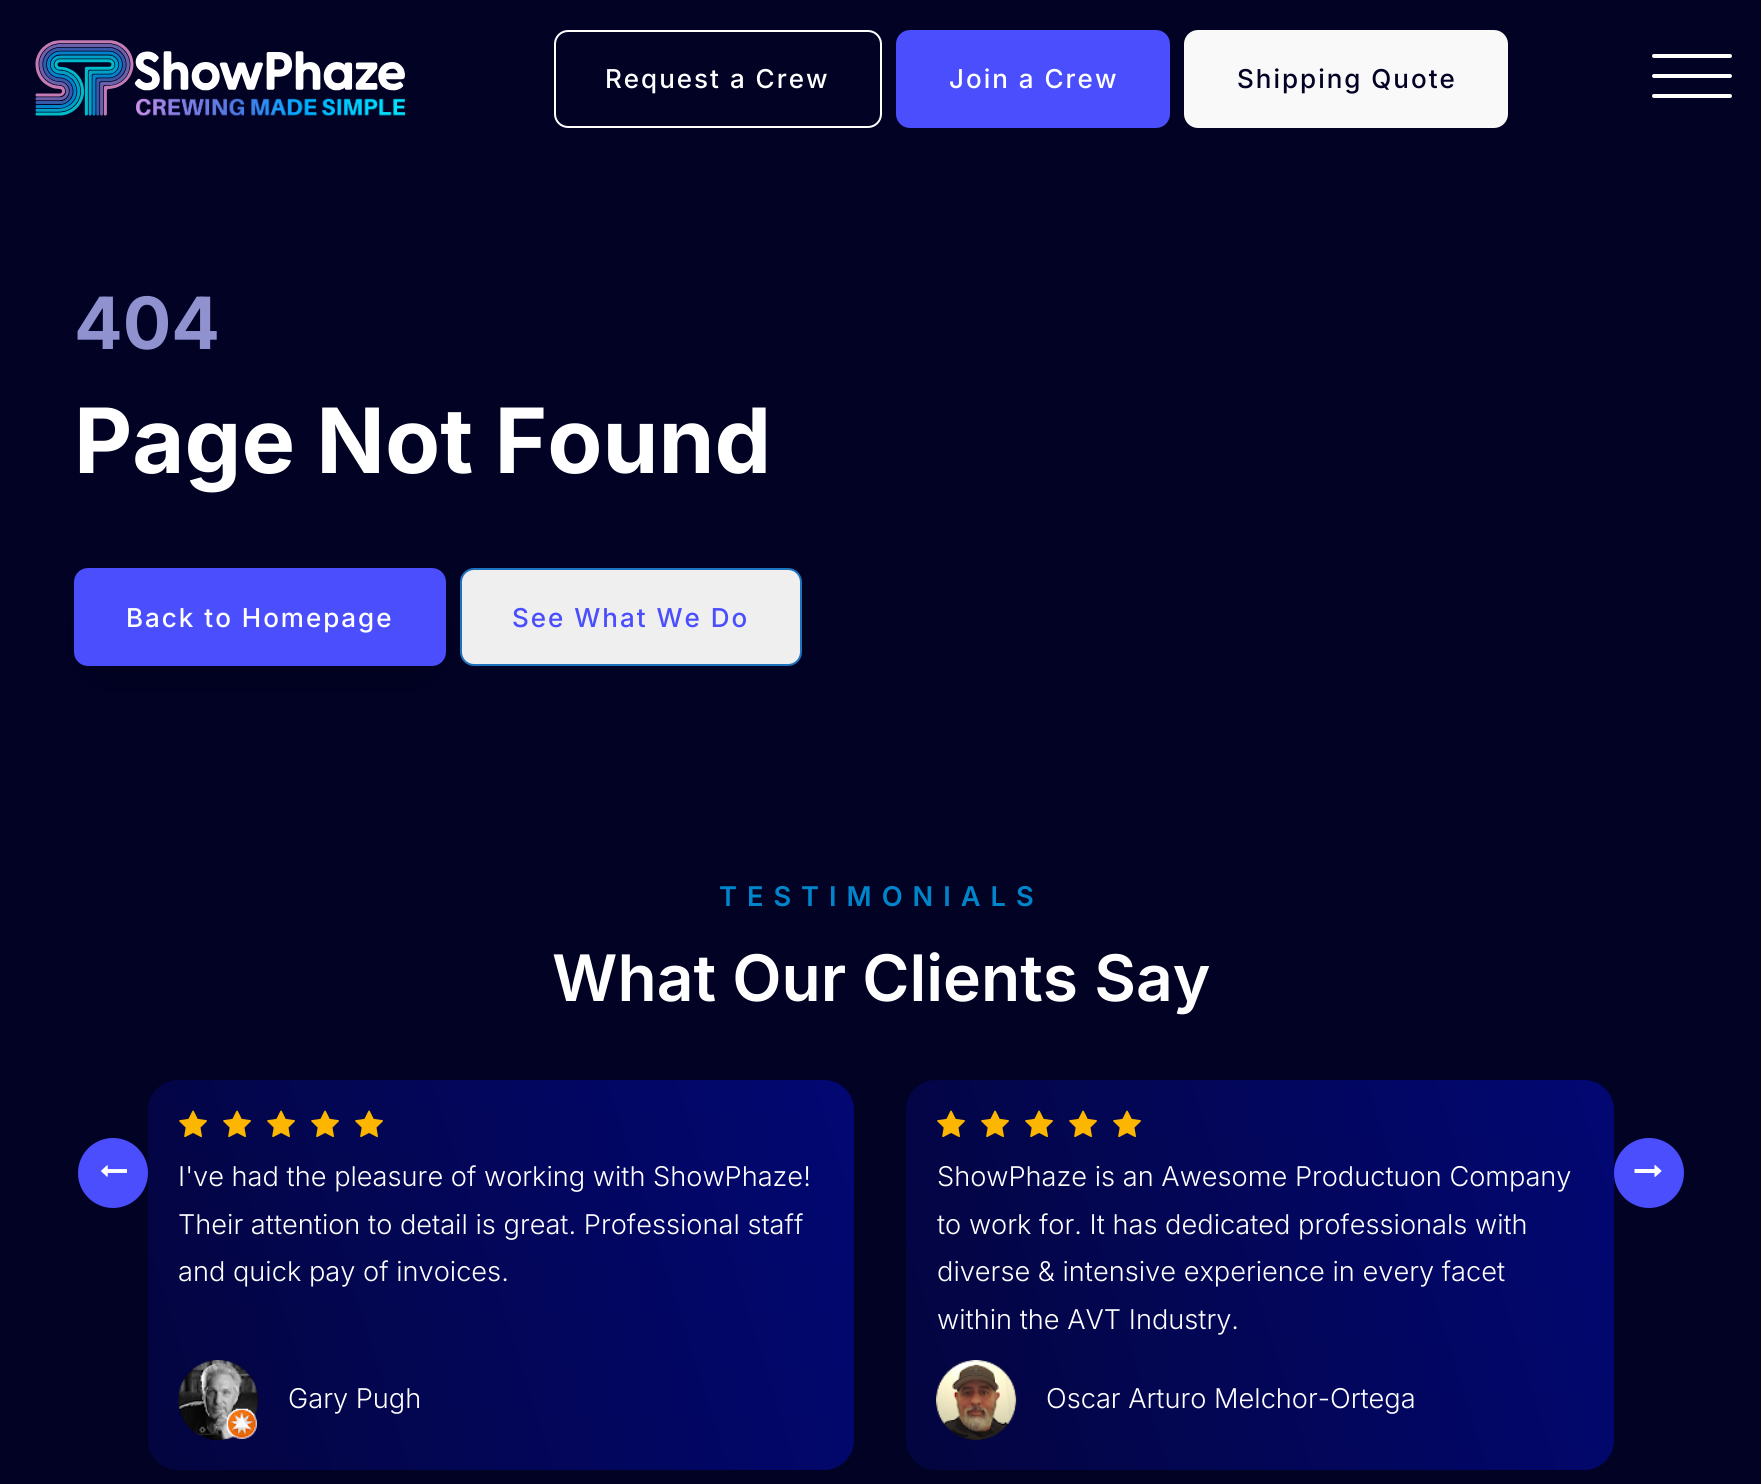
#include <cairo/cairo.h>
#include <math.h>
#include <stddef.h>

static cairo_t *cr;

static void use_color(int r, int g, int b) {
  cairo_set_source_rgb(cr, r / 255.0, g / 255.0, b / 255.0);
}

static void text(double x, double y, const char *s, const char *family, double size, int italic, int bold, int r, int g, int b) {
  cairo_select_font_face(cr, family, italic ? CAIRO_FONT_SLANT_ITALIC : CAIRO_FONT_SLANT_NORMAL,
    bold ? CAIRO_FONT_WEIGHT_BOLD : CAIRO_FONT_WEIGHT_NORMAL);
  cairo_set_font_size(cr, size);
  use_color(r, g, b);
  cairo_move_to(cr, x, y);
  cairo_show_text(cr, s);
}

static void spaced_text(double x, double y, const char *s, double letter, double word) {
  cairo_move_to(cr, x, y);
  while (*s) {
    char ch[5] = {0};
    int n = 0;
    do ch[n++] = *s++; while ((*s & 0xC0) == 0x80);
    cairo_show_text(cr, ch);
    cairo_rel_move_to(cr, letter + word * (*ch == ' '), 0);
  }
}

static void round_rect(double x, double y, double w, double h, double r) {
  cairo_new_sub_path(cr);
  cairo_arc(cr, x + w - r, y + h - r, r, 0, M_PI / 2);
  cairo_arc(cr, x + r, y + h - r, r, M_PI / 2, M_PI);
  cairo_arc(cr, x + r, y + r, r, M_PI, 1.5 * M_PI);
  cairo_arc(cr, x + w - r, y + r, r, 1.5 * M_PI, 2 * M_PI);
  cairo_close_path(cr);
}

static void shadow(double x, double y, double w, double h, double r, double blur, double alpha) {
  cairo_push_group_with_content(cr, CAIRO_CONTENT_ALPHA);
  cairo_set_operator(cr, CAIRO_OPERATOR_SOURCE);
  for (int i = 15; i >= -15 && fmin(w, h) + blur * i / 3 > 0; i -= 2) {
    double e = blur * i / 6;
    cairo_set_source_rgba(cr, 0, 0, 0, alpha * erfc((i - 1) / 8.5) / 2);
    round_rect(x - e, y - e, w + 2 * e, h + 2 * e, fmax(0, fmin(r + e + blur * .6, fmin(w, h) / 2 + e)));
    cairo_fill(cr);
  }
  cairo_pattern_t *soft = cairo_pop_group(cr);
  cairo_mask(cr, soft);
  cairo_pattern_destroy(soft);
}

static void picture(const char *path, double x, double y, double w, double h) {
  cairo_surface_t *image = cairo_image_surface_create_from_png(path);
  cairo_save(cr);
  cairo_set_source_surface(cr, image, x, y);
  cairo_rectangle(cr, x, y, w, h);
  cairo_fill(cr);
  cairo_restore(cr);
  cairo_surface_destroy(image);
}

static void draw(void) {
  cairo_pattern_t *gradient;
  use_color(1, 2, 36);
  cairo_paint(cr);
  picture("img_01.png", 35, 40, 371, 76);
  round_rect(555, 31, 326, 96, 13);
  use_color(255, 255, 255);
  cairo_stroke(cr);
  use_color(75, 78, 252);
  round_rect(897, 31, 272, 96, 13);
  cairo_fill_preserve(cr);
  cairo_stroke(cr);
  use_color(249, 249, 249);
  round_rect(1185, 31, 322, 96, 13);
  cairo_fill_preserve(cr);
  cairo_stroke(cr);
  use_color(255, 255, 255);
  round_rect(1652, 54, 80, 4, 2);
  cairo_fill(cr);
  round_rect(1652, 74, 80, 4, 2);
  cairo_fill(cr);
  round_rect(1652, 94, 80, 4, 2);
  cairo_fill(cr);
  use_color(0, 0, 0);
  shadow(104, 618, 312, 38, 0, 20, 0.5);
  use_color(75, 78, 252);
  round_rect(75, 569, 370, 96, 13);
  cairo_fill_preserve(cr);
  cairo_stroke(cr);
  use_color(239, 239, 239);
  round_rect(461, 569, 340, 96, 13);
  cairo_fill_preserve(cr);
  use_color(30, 115, 190);
  cairo_stroke(cr);
  use_color(75, 78, 252);
  cairo_arc(cr, 113, 1173, 35, 0, 2 * M_PI);
  cairo_fill(cr);
  picture("img_02.png", 101, 1165, 27, 12);
  gradient = cairo_pattern_create_linear(124, 1393, 878, 1157);
  cairo_pattern_add_color_stop_rgba(gradient, 0, 0.012, 0.02, 0.247, 1);
  cairo_pattern_add_color_stop_rgba(gradient, 1, 0.008, 0.027, 0.451, 1);
  cairo_set_source(cr, gradient);
  cairo_pattern_destroy(gradient);
  round_rect(148, 1080, 706, 390, 30);
  cairo_fill(cr);
  picture("img_03.png", 179, 1110, 28, 28);
  picture("img_04.png", 223, 1110, 28, 28);
  picture("img_05.png", 267, 1110, 28, 28);
  picture("img_06.png", 311, 1110, 28, 28);
  picture("img_07.png", 355, 1110, 28, 28);
  picture("img_08.png", 178, 1360, 81, 80);
  gradient = cairo_pattern_create_linear(882, 1393, 1638, 1157);
  cairo_pattern_add_color_stop_rgba(gradient, 0, 0.012, 0.02, 0.247, 1);
  cairo_pattern_add_color_stop_rgba(gradient, 1, 0.008, 0.027, 0.451, 1);
  cairo_set_source(cr, gradient);
  cairo_pattern_destroy(gradient);
  round_rect(906, 1080, 708, 390, 30);
  cairo_fill(cr);
  picture("img_09.png", 937, 1110, 28, 28);
  picture("img_10.png", 981, 1110, 28, 28);
  picture("img_11.png", 1025, 1110, 28, 28);
  picture("img_12.png", 1069, 1110, 28, 28);
  picture("img_13.png", 1113, 1110, 28, 28);
  picture("img_14.png", 936, 1360, 81, 80);
  use_color(75, 78, 252);
  cairo_arc(cr, 1649, 1173, 35, 0, 2 * M_PI);
  cairo_fill(cr);
  picture("img_15.png", 1634, 1165, 28, 12);
  cairo_select_font_face(cr, "Inter Medium", CAIRO_FONT_SLANT_NORMAL, CAIRO_FONT_WEIGHT_NORMAL);
  cairo_set_font_size(cr, 26);
  use_color(255, 255, 255);
  spaced_text(605, 88, "Request a Crew", 2, 0);
  spaced_text(949, 88, "Join a Crew", 2, 0);
  use_color(1, 2, 36);
  spaced_text(1237, 88, "Shipping Quote", 2, 0);
  text(74, 349, "404", "Inter", 72, 0, 1, 144, 146, 208);
  text(74, 473, "Page Not Found", "Inter", 90, 0, 1, 255, 255, 255);
  cairo_select_font_face(cr, "Inter Medium", CAIRO_FONT_SLANT_NORMAL, CAIRO_FONT_WEIGHT_NORMAL);
  cairo_set_font_size(cr, 26);
  spaced_text(126, 627, "Back to Homepage", 2, 0);
  use_color(75, 78, 252);
  spaced_text(512, 627, "See What We Do", 2, 0);
  cairo_select_font_face(cr, "Inter SemiBold", CAIRO_FONT_SLANT_NORMAL, CAIRO_FONT_WEIGHT_NORMAL);
  cairo_set_font_size(cr, 27.2);
  use_color(0, 133, 203);
  spaced_text(719, 906, "TESTIMONIALS", 10, 0);
  text(552, 1001, "What Our Clients Say", "Inter SemiBold", 64.1, 0, 0, 255, 255, 255);
  text(178, 1186, "I've had the pleasure of working with ShowPhaze!", "Inter Light", 27.2, 0, 0, 255, 255, 255);
  text(178, 1234, "Their attention to detail is great. Professional staff", "Inter Light", 27.2, 0, 0, 255, 255, 255);
  text(178, 1281, "and quick pay of invoices.", "Inter Light", 27.2, 0, 0, 255, 255, 255);
  text(288, 1408, "Gary Pugh", "Inter Light", 27.2, 0, 0, 255, 255, 255);
  text(937, 1186, "ShowPhaze is an Awesome Productuon Company", "Inter Light", 27.2, 0, 0, 255, 255, 255);
  text(937, 1234, "to work for. It has dedicated professionals with", "Inter Light", 27.2, 0, 0, 255, 255, 255);
  text(937, 1281, "diverse & intensive experience in every facet", "Inter Light", 27.2, 0, 0, 255, 255, 255);
  text(937, 1329, "within the AVT Industry.", "Inter Light", 27.2, 0, 0, 255, 255, 255);
  text(1046, 1408, "Oscar Arturo Melchor-Ortega", "Inter Light", 27.2, 0, 0, 255, 255, 255);
}

int main(void) {
  cairo_surface_t *surface = cairo_image_surface_create(CAIRO_FORMAT_RGB24, 1761, 1484);
  cr = cairo_create(surface);
  cairo_font_options_t *options = cairo_font_options_create();
  cairo_font_options_set_hint_metrics(options, CAIRO_HINT_METRICS_OFF);
  cairo_font_options_set_hint_style(options, CAIRO_HINT_STYLE_NONE);
  cairo_set_font_options(cr, options);
  cairo_set_miter_limit(cr, 4);
  draw();
  cairo_surface_write_to_png(surface, "out.png");
  cairo_font_options_destroy(options);
  cairo_destroy(cr);
  cairo_surface_destroy(surface);
  return 0;
}
